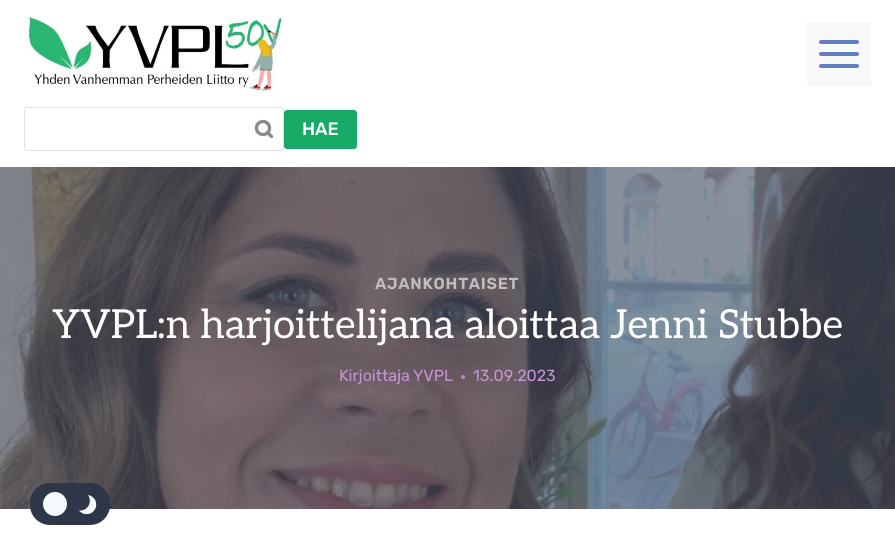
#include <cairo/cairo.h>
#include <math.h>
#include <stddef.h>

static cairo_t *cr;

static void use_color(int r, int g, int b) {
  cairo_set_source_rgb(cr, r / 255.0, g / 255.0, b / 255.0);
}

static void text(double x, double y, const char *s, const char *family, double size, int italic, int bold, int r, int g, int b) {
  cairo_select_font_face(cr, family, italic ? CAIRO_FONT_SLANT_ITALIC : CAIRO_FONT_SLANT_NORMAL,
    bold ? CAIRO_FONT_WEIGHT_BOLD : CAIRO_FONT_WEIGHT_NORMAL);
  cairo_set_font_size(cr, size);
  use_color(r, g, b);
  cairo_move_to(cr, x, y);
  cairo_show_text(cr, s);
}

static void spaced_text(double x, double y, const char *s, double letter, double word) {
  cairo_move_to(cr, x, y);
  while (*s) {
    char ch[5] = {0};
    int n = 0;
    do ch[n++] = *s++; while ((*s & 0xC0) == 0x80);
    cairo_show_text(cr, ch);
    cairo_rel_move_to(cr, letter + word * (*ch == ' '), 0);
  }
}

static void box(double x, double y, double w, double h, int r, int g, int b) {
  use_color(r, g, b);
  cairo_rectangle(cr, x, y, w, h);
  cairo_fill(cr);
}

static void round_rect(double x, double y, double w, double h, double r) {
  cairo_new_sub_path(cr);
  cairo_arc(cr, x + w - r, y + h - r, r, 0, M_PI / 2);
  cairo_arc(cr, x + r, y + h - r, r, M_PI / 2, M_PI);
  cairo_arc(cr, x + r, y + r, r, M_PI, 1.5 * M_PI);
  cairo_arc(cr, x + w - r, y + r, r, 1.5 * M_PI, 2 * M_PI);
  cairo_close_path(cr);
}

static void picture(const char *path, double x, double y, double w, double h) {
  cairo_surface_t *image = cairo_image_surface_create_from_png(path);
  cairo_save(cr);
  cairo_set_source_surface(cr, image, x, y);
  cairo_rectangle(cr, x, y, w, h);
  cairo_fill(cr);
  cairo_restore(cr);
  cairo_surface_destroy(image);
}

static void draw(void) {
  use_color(255, 255, 255);
  cairo_paint(cr);
  picture("img_01.png", 24, 16, 260, 75);
  box(807, 22, 64, 64, 248, 248, 248);
  cairo_new_path(cr);
  cairo_move_to(cr, 821, 54);
  cairo_line_to(cr, 857, 54);
  cairo_move_to(cr, 821, 42);
  cairo_line_to(cr, 857, 42);
  cairo_move_to(cr, 821, 66);
  cairo_line_to(cr, 857, 66);
  use_color(96, 127, 194);
  cairo_set_line_width(cr, 4);
  cairo_set_line_cap(cr, CAIRO_LINE_CAP_ROUND);
  cairo_set_line_join(cr, CAIRO_LINE_JOIN_ROUND);
  cairo_stroke(cr);
  round_rect(24.5, 107.5, 259, 43, 2.5);
  use_color(222, 226, 230);
  cairo_set_line_width(cr, 1);
  cairo_set_line_cap(cr, CAIRO_LINE_CAP_BUTT);
  cairo_set_line_join(cr, CAIRO_LINE_JOIN_MITER);
  cairo_stroke(cr);
  cairo_arc(cr, 263, 128, 6.5, 0, 2 * M_PI);
  use_color(136, 136, 136);
  cairo_set_line_width(cr, 3.3);
  cairo_stroke(cr);
  cairo_new_path(cr);
  cairo_move_to(cr, 271.5, 136.5);
  cairo_line_to(cr, 268, 133);
  cairo_set_line_cap(cr, CAIRO_LINE_CAP_ROUND);
  cairo_set_line_join(cr, CAIRO_LINE_JOIN_ROUND);
  cairo_stroke(cr);
  use_color(22, 170, 102);
  round_rect(284, 110, 73, 39, 3);
  cairo_fill(cr);
  picture("img_02.png", 0, 167, 895, 342);
  cairo_set_source_rgba(cr, 0.784, 0.576, 0.835, 0.8);
  cairo_arc(cr, 463, 377, 2, 0, 2 * M_PI);
  cairo_fill(cr);
  use_color(45, 55, 72);
  round_rect(30, 483, 80, 42, 20);
  cairo_fill(cr);
  use_color(247, 250, 252);
  cairo_arc(cr, 55, 504, 12, 0, 2 * M_PI);
  cairo_fill(cr);
  picture("img_03.png", 79, 495, 18, 19);
  text(302, 135, "HAE", "Rubik Medium", 18, 0, 0, 255, 255, 255);
  cairo_select_font_face(cr, "Rubik SemiBold", CAIRO_FONT_SLANT_NORMAL, CAIRO_FONT_WEIGHT_NORMAL);
  cairo_set_font_size(cr, 16);
  use_color(193, 189, 192);
  spaced_text(375, 289, "AJANKOHTAISET", 0.75, 0);
  text(52, 338, "YVPL:n harjoittelijana aloittaa Jenni Stubbe", "Aleo", 40, 0, 0, 255, 255, 255);
  text(339, 381, "Kirjoittaja", "Rubik", 16, 0, 0, 200, 147, 213);
  text(413, 381, "YVPL", "Rubik", 16, 0, 0, 200, 147, 213);
  text(473, 381, "13.09.2023", "Rubik", 16, 0, 0, 200, 147, 213);
}

int main(void) {
  cairo_surface_t *surface = cairo_image_surface_create(CAIRO_FORMAT_RGB24, 895, 555);
  cr = cairo_create(surface);
  cairo_font_options_t *options = cairo_font_options_create();
  cairo_font_options_set_hint_metrics(options, CAIRO_HINT_METRICS_OFF);
  cairo_font_options_set_hint_style(options, CAIRO_HINT_STYLE_NONE);
  cairo_set_font_options(cr, options);
  cairo_set_miter_limit(cr, 4);
  draw();
  cairo_surface_write_to_png(surface, "out.png");
  cairo_font_options_destroy(options);
  cairo_destroy(cr);
  cairo_surface_destroy(surface);
  return 0;
}
